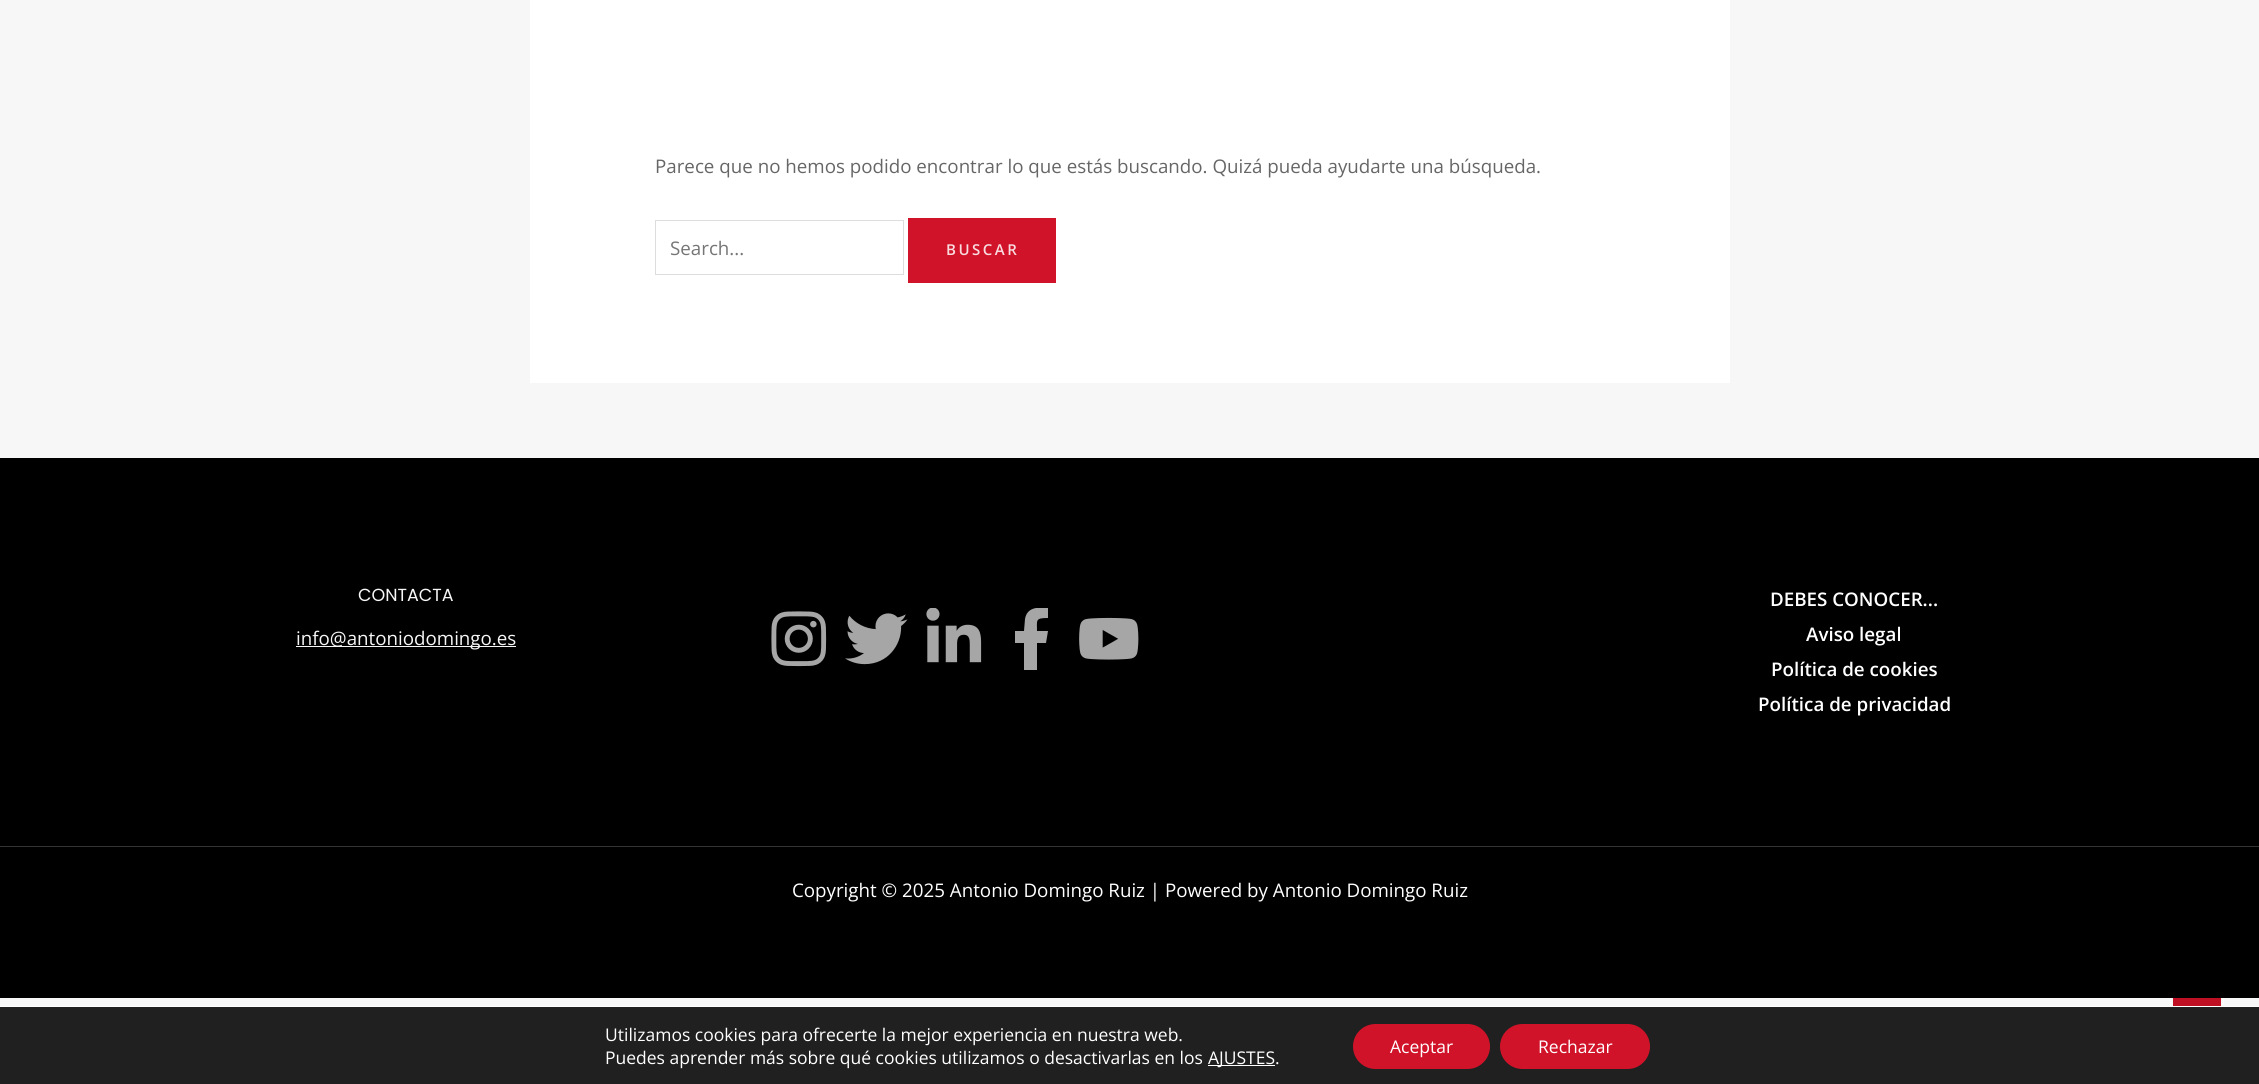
#include <cairo/cairo.h>
#include <math.h>
#include <stddef.h>

static cairo_t *cr;

static void use_color(int r, int g, int b) {
  cairo_set_source_rgb(cr, r / 255.0, g / 255.0, b / 255.0);
}

static void text(double x, double y, const char *s, const char *family, double size, int italic, int bold, int r, int g, int b) {
  cairo_select_font_face(cr, family, italic ? CAIRO_FONT_SLANT_ITALIC : CAIRO_FONT_SLANT_NORMAL,
    bold ? CAIRO_FONT_WEIGHT_BOLD : CAIRO_FONT_WEIGHT_NORMAL);
  cairo_set_font_size(cr, size);
  use_color(r, g, b);
  cairo_move_to(cr, x, y);
  cairo_show_text(cr, s);
}

static void spaced_text(double x, double y, const char *s, double letter, double word) {
  cairo_move_to(cr, x, y);
  while (*s) {
    char ch[5] = {0};
    int n = 0;
    do ch[n++] = *s++; while ((*s & 0xC0) == 0x80);
    cairo_show_text(cr, ch);
    cairo_rel_move_to(cr, letter + word * (*ch == ' '), 0);
  }
}

static void box(double x, double y, double w, double h, int r, int g, int b) {
  use_color(r, g, b);
  cairo_rectangle(cr, x, y, w, h);
  cairo_fill(cr);
}

static void round_rect(double x, double y, double w, double h, double r) {
  cairo_new_sub_path(cr);
  cairo_arc(cr, x + w - r, y + h - r, r, 0, M_PI / 2);
  cairo_arc(cr, x + r, y + h - r, r, M_PI / 2, M_PI);
  cairo_arc(cr, x + r, y + r, r, M_PI, 1.5 * M_PI);
  cairo_arc(cr, x + w - r, y + r, r, 1.5 * M_PI, 2 * M_PI);
  cairo_close_path(cr);
}

static void picture(const char *path, double x, double y, double w, double h) {
  cairo_surface_t *image = cairo_image_surface_create_from_png(path);
  cairo_save(cr);
  cairo_set_source_surface(cr, image, x, y);
  cairo_rectangle(cr, x, y, w, h);
  cairo_fill(cr);
  cairo_restore(cr);
  cairo_surface_destroy(image);
}

static void draw(void) {
  use_color(247, 247, 247);
  cairo_paint(cr);
  box(530, 0, 1200, 383, 255, 255, 255);
  cairo_rectangle(cr, 655.5, 220.5, 248, 54);
  use_color(221, 221, 221);
  cairo_set_line_width(cr, 1);
  cairo_stroke(cr);
  box(908, 218, 148, 65, 209, 19, 41);
  box(0, 458, 2259, 540, 0, 0, 0);
  box(296, 646, 220, 1, 247, 247, 247);
  picture("img_01.png", 771, 611, 56, 56);
  picture("img_02.png", 845, 613, 63, 52);
  picture("img_03.png", 926, 608, 56, 55);
  cairo_save(cr);
  cairo_rectangle(cr, 1000, 608, 63, 62);
  cairo_clip(cr);
  use_color(166, 166, 166);
  cairo_new_path(cr);
  cairo_move_to(cr, 1046, 643);
  cairo_line_to(cr, 1048, 631);
  cairo_line_to(cr, 1037, 631);
  cairo_curve_to(cr, 1037, 620, 1035, 618, 1048, 618);
  cairo_line_to(cr, 1048, 608);
  cairo_curve_to(cr, 1038, 607, 1027, 607, 1025, 619);
  cairo_line_to(cr, 1024, 631);
  cairo_line_to(cr, 1015, 631);
  cairo_line_to(cr, 1015, 643);
  cairo_line_to(cr, 1024, 643);
  cairo_line_to(cr, 1024, 670);
  cairo_line_to(cr, 1037, 670);
  cairo_line_to(cr, 1037, 643);
  cairo_close_path(cr);
  cairo_fill(cr);
  cairo_restore(cr);
  picture("img_04.png", 1079, 617, 60, 43);
  box(0, 846, 2259, 1, 51, 51, 51);
  box(2173, 998, 48, 8, 190, 15, 35);
  cairo_save(cr);
  cairo_rectangle(cr, 2135, 998, 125, 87);
  cairo_clip(cr);
  cairo_new_path(cr);
  cairo_move_to(cr, 2170.5, 995.5);
  cairo_line_to(cr, 2223, 995.5);
  cairo_line_to(cr, 2223, 1049.5);
  cairo_line_to(cr, 2170.5, 1049.5);
  cairo_close_path(cr);
  use_color(255, 255, 255);
  cairo_set_line_width(cr, 1.2);
  cairo_set_dash(cr, (double[]){1.25, 1.25}, 2, 0);
  cairo_stroke(cr);
  cairo_restore(cr);
  box(0, 1007, 2259, 77, 32, 32, 32);
  box(0, 1006, 2259, 1, 255, 255, 255);
  box(1208, 1065, 67, 1, 255, 255, 255);
  use_color(209, 19, 41);
  round_rect(1353, 1024, 137, 45, 22.5);
  cairo_fill(cr);
  round_rect(1500, 1024, 150, 45, 22.5);
  cairo_fill(cr);
  text(655, 173, "Parece que no hemos podido encontrar lo que estás buscando. Quizá pueda ayudarte una búsqueda.", "Open Sans", 18.75, 0, 0, 102, 102, 102);
  text(670, 255, "Search...", "Open Sans", 18.75, 0, 0, 117, 117, 117);
  cairo_select_font_face(cr, "Open Sans SemiBold", CAIRO_FONT_SLANT_NORMAL, CAIRO_FONT_WEIGHT_NORMAL);
  cairo_set_font_size(cr, 15);
  use_color(248, 220, 223);
  spaced_text(946, 255, "BUSCAR", 2.5, 0);
  text(358, 601, "CONTACTA", "Poppins", 17.5, 0, 0, 247, 247, 247);
  text(296, 645, "info@antoniodomingo.es", "Open Sans", 18.75, 0, 0, 247, 247, 247);
  text(1770, 606, "DEBES CONOCER...", "Open Sans SemiBold", 18.75, 0, 0, 255, 255, 255);
  text(1806, 641, "Aviso legal", "Open Sans SemiBold", 18.75, 0, 0, 255, 255, 255);
  text(1771, 676, "Política de cookies", "Open Sans SemiBold", 18.75, 0, 0, 255, 255, 255);
  text(1758, 711, "Política de privacidad", "Open Sans SemiBold", 18.75, 0, 0, 255, 255, 255);
  text(792, 897, "Copyright © 2025 Antonio Domingo Ruiz | Powered by Antonio Domingo Ruiz", "Open Sans", 18.75, 0, 0, 255, 255, 255);
  text(605, 1041, "Utilizamos cookies para ofrecerte la mejor experiencia en nuestra web.", "Open Sans", 17.5, 0, 0, 255, 255, 255);
  text(605, 1064, "Puedes aprender más sobre qué cookies utilizamos o desactivarlas en los", "Open Sans", 17.5, 0, 0, 255, 255, 255);
  text(1208, 1064, "AJUSTES.", "Open Sans", 17.5, 0, 0, 255, 255, 255);
  text(1390, 1053, "Aceptar", "Open Sans", 17.5, 0, 0, 255, 255, 255);
  text(1538, 1053, "Rechazar", "Open Sans", 17.5, 0, 0, 255, 255, 255);
}

int main(void) {
  cairo_surface_t *surface = cairo_image_surface_create(CAIRO_FORMAT_RGB24, 2259, 1084);
  cr = cairo_create(surface);
  cairo_font_options_t *options = cairo_font_options_create();
  cairo_font_options_set_hint_metrics(options, CAIRO_HINT_METRICS_OFF);
  cairo_font_options_set_hint_style(options, CAIRO_HINT_STYLE_NONE);
  cairo_set_font_options(cr, options);
  cairo_set_miter_limit(cr, 4);
  draw();
  cairo_surface_write_to_png(surface, "out.png");
  cairo_font_options_destroy(options);
  cairo_destroy(cr);
  cairo_surface_destroy(surface);
  return 0;
}
